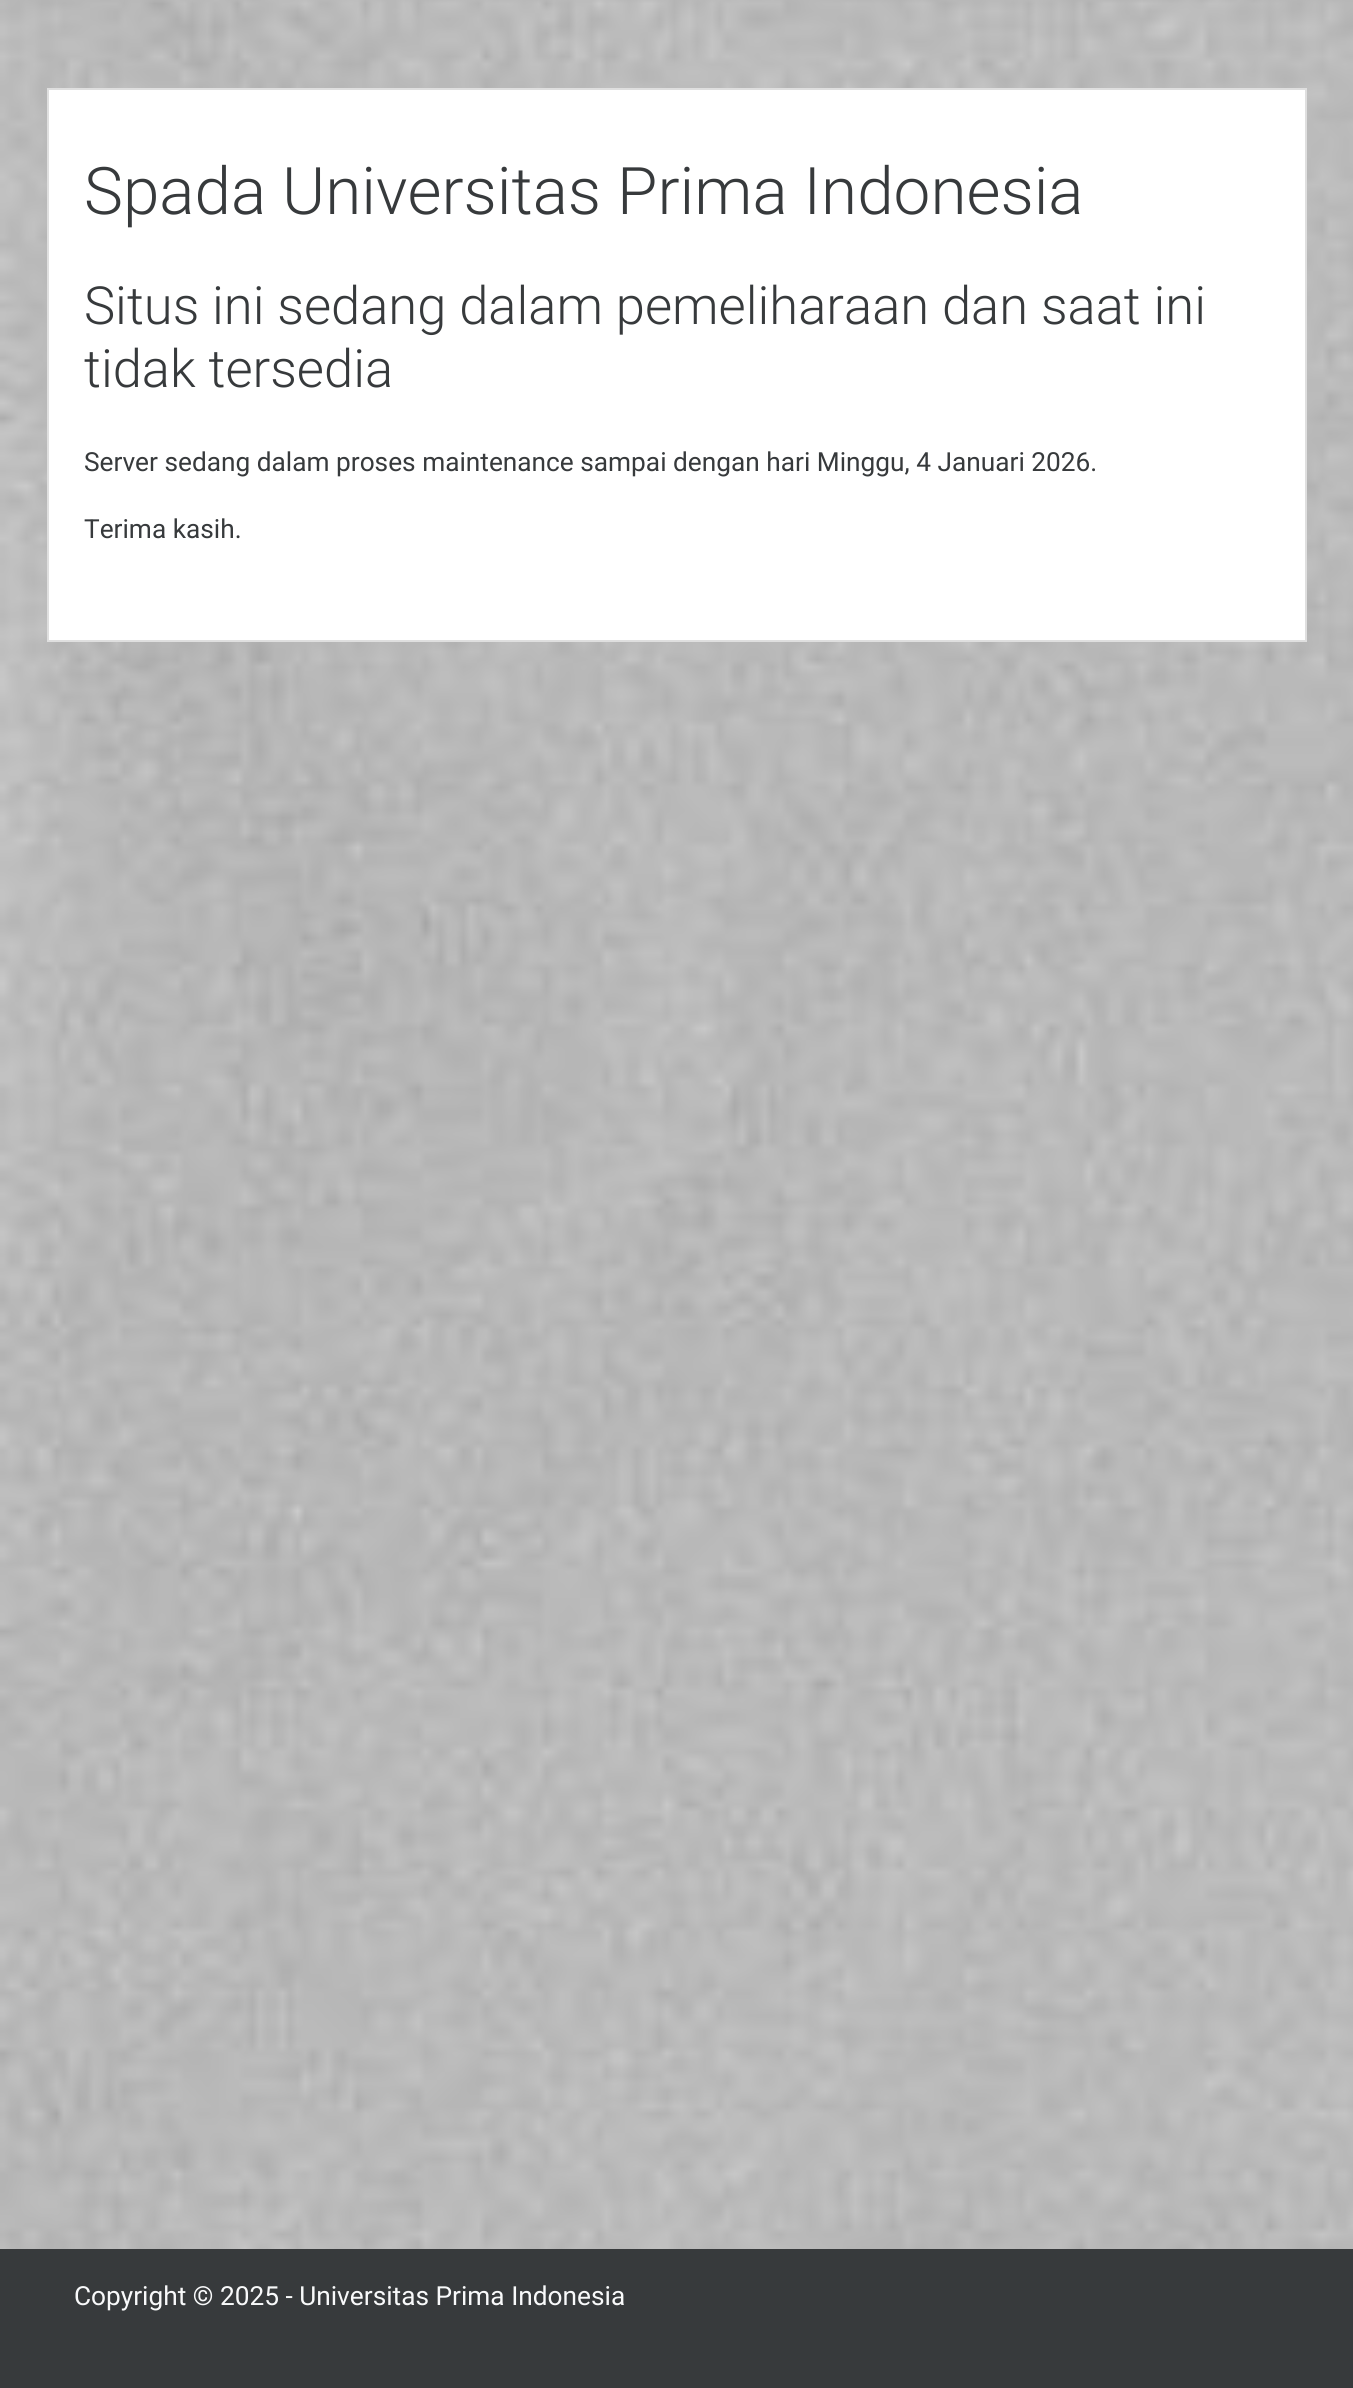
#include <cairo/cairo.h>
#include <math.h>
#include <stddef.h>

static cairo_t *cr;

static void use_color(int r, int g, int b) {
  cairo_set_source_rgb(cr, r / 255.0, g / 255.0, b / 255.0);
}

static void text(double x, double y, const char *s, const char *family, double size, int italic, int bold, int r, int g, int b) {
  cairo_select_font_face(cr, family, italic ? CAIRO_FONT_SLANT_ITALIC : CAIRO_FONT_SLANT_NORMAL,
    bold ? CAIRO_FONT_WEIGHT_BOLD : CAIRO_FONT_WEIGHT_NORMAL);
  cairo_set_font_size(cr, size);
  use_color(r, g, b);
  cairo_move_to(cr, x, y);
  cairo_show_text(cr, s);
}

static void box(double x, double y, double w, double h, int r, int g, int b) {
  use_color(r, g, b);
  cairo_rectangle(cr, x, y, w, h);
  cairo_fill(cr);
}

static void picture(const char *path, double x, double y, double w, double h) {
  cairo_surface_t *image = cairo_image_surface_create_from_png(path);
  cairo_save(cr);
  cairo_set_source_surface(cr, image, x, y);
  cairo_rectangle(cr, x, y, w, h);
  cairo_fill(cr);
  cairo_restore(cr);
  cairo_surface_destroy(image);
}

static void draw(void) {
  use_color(255, 255, 255);
  cairo_paint(cr);
  picture("img_01.png", 0, 0, 1353, 2249);
  use_color(255, 255, 255);
  cairo_rectangle(cr, 48, 89, 1258, 552);
  cairo_fill_preserve(cr);
  use_color(223, 223, 223);
  cairo_stroke(cr);
  box(0, 2249, 1353, 139, 55, 58, 60);
  text(84, 214, "Spada Universitas Prima Indonesia", "Roboto Light", 65.6, 0, 0, 55, 58, 60);
  text(84, 324, "Situs ini sedang dalam pemeliharaan dan saat ini", "Roboto Light", 52.5, 0, 0, 55, 58, 60);
  text(84, 387, "tidak tersedia", "Roboto Light", 52.5, 0, 0, 55, 58, 60);
  text(84, 471, "Server sedang dalam proses maintenance sampai dengan hari Minggu, 4 Januari 2026.", "Roboto", 26.25, 0, 0, 55, 58, 60);
  text(84, 538, "Terima kasih.", "Roboto", 26.25, 0, 0, 55, 58, 60);
  text(74, 2305, "Copyright © 2025 - Universitas Prima Indonesia", "Roboto", 26.25, 0, 0, 248, 249, 250);
}

int main(void) {
  cairo_surface_t *surface = cairo_image_surface_create(CAIRO_FORMAT_RGB24, 1353, 2388);
  cr = cairo_create(surface);
  cairo_font_options_t *options = cairo_font_options_create();
  cairo_font_options_set_hint_metrics(options, CAIRO_HINT_METRICS_OFF);
  cairo_font_options_set_hint_style(options, CAIRO_HINT_STYLE_NONE);
  cairo_set_font_options(cr, options);
  cairo_set_miter_limit(cr, 4);
  draw();
  cairo_surface_write_to_png(surface, "out.png");
  cairo_font_options_destroy(options);
  cairo_destroy(cr);
  cairo_surface_destroy(surface);
  return 0;
}
